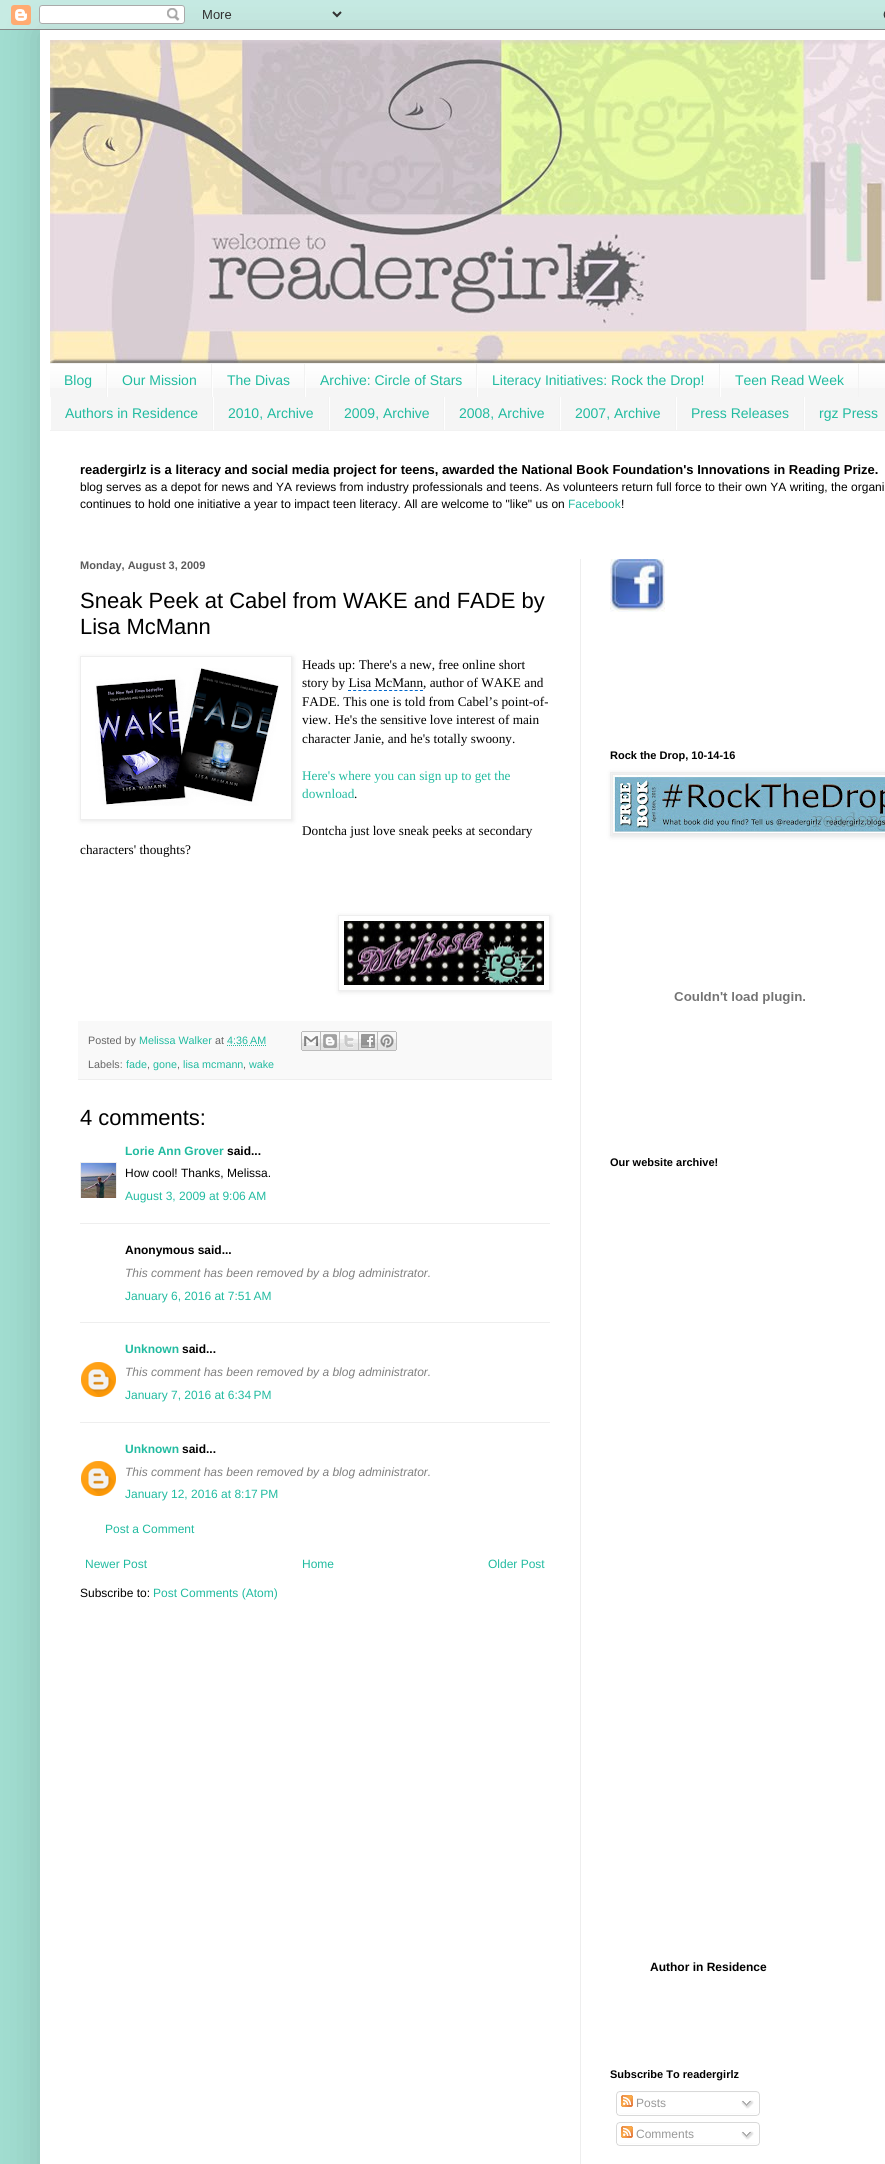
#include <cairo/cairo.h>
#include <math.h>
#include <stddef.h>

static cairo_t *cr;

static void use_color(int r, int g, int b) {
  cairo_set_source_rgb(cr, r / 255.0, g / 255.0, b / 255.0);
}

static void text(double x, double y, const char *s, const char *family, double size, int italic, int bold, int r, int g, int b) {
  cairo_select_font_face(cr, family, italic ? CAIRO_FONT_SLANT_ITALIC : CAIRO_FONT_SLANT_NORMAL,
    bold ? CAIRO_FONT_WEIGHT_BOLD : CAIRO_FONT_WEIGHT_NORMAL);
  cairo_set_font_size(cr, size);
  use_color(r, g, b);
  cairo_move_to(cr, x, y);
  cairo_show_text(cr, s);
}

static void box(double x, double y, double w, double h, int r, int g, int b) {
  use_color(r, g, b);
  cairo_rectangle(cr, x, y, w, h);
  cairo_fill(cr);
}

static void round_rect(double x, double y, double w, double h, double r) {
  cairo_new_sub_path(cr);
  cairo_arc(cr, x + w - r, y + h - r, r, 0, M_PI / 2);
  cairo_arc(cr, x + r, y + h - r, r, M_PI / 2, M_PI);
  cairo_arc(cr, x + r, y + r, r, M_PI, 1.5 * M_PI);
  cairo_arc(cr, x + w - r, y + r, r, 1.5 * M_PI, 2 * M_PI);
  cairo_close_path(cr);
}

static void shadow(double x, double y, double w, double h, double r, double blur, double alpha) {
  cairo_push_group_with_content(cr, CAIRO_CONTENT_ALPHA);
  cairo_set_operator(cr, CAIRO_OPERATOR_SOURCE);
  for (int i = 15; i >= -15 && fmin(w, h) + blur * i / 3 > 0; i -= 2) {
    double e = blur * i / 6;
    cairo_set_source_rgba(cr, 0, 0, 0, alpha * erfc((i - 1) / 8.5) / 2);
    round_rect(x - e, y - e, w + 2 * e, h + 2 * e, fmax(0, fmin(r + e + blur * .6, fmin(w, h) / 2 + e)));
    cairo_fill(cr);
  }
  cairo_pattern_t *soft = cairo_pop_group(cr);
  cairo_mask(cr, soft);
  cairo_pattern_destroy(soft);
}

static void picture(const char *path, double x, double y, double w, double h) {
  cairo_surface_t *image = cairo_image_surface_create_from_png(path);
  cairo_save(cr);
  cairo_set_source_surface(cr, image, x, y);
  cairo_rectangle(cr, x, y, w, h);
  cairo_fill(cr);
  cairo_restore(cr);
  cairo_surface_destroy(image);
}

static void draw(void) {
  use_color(161, 221, 208);
  cairo_paint(cr);
  use_color(0, 0, 0);
  shadow(40, 30, 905, 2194, 0, 20, 0.15);
  picture("img_01.png", 0, 0, 885, 30);
  box(40, 30, 845, 2134, 255, 255, 255);
  picture("img_02.png", 50, 40, 835, 323);
  box(50, 365, 835, 65, 245, 245, 245);
  picture("img_03.png", 50, 364, 835, 24);
  box(50, 363, 835, 1, 242, 242, 242);
  box(50, 430, 835, 1, 242, 242, 242);
  box(106, 364, 1, 33, 242, 242, 242);
  box(211, 364, 1, 33, 242, 242, 242);
  box(107, 375, 1, 22, 255, 255, 255);
  box(304, 364, 1, 33, 242, 242, 242);
  box(212, 375, 1, 22, 255, 255, 255);
  box(476, 364, 1, 33, 242, 242, 242);
  box(305, 375, 1, 22, 255, 255, 255);
  box(719, 364, 1, 33, 242, 242, 242);
  box(477, 375, 1, 22, 255, 255, 255);
  box(858, 364, 1, 33, 242, 242, 242);
  box(720, 375, 1, 22, 255, 255, 255);
  box(212, 397, 1, 33, 242, 242, 242);
  box(50, 397, 1, 33, 255, 255, 255);
  box(328, 397, 1, 33, 242, 242, 242);
  box(213, 397, 1, 33, 255, 255, 255);
  box(443, 397, 1, 33, 242, 242, 242);
  box(329, 397, 1, 33, 255, 255, 255);
  box(559, 397, 1, 33, 242, 242, 242);
  box(444, 397, 1, 33, 255, 255, 255);
  box(675, 397, 1, 33, 242, 242, 242);
  box(560, 397, 1, 33, 255, 255, 255);
  box(803, 397, 1, 33, 242, 242, 242);
  box(676, 397, 1, 33, 255, 255, 255);
  box(804, 397, 1, 33, 255, 255, 255);
  box(580, 559, 1, 1605, 238, 238, 238);
  cairo_save(cr);
  cairo_set_fill_rule(cr, CAIRO_FILL_RULE_EVEN_ODD);
  cairo_new_path(cr);
  cairo_move_to(cr, 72, 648);
  cairo_line_to(cr, 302, 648);
  cairo_line_to(cr, 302, 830);
  cairo_line_to(cr, 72, 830);
  cairo_close_path(cr);
  cairo_move_to(cr, 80, 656);
  cairo_line_to(cr, 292, 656);
  cairo_line_to(cr, 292, 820);
  cairo_line_to(cr, 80, 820);
  cairo_close_path(cr);
  cairo_clip(cr);
  use_color(0, 0, 0);
  shadow(81, 657, 212, 164, 0, 2.5, 0.1);
  cairo_restore(cr);
  cairo_rectangle(cr, 80.5, 656.5, 211, 163);
  cairo_set_line_width(cr, 1);
  cairo_stroke(cr);
  picture("img_04.png", 95, 668, 184, 138);
  cairo_new_path(cr);
  cairo_move_to(cr, 348, 690.5);
  cairo_line_to(cr, 423, 690.5);
  use_color(0, 102, 204);
  cairo_set_dash(cr, (double[]){3, 2.14}, 2, 0);
  cairo_stroke(cr);
  cairo_save(cr);
  cairo_set_fill_rule(cr, CAIRO_FILL_RULE_EVEN_ODD);
  cairo_new_path(cr);
  cairo_move_to(cr, 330, 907);
  cairo_line_to(cr, 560, 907);
  cairo_line_to(cr, 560, 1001);
  cairo_line_to(cr, 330, 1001);
  cairo_close_path(cr);
  cairo_move_to(cr, 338, 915);
  cairo_line_to(cr, 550, 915);
  cairo_line_to(cr, 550, 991);
  cairo_line_to(cr, 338, 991);
  cairo_close_path(cr);
  cairo_clip(cr);
  use_color(0, 0, 0);
  shadow(339, 916, 212, 76, 0, 2.5, 0.1);
  cairo_restore(cr);
  cairo_rectangle(cr, 338.5, 915.5, 211, 75);
  use_color(238, 238, 238);
  cairo_set_dash(cr, NULL, 0, 0);
  cairo_stroke(cr);
  picture("img_05.png", 344, 921, 200, 64);
  box(78, 1021, 474, 58, 249, 249, 249);
  box(78, 1079, 474, 1, 238, 238, 238);
  cairo_new_path(cr);
  cairo_move_to(cr, 227, 1045.5);
  cairo_line_to(cr, 266.5, 1045.5);
  use_color(33, 187, 160);
  cairo_set_dash(cr, (double[]){1, 1}, 2, 0);
  cairo_stroke(cr);
  picture("img_06.png", 301, 1031, 20, 20);
  picture("img_07.png", 321, 1031, 19, 20);
  picture("img_08.png", 340, 1031, 19, 20);
  picture("img_09.png", 359, 1031, 19, 20);
  picture("img_10.png", 378, 1031, 19, 20);
  cairo_save(cr);
  cairo_rectangle(cr, 80, 1162, 37, 36);
  cairo_clip(cr);
  cairo_rectangle(cr, 80.5, 1162.5, 36, 36);
  use_color(238, 238, 238);
  cairo_set_dash(cr, NULL, 0, 0);
  cairo_stroke(cr);
  cairo_restore(cr);
  picture("img_11.png", 81, 1163, 35, 35);
  box(80, 1223, 470, 1, 238, 238, 238);
  box(80, 1322, 470, 1, 238, 238, 238);
  picture("img_12.png", 81, 1362, 35, 35);
  box(80, 1422, 470, 1, 238, 238, 238);
  picture("img_12.png", 81, 1461, 35, 35);
  picture("img_13.png", 610, 559, 55, 53);
  use_color(0, 0, 0);
  shadow(611, 773, 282, 64, 0, 2.5, 0.1);
  cairo_rectangle(cr, 610.5, 772.5, 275, 63);
  use_color(238, 238, 238);
  cairo_set_dash(cr, NULL, 0, 0);
  cairo_stroke(cr);
  picture("img_14.png", 613, 775, 272, 58);
  picture("img_15.png", 674, 992, 131, 12);
  picture("img_16.png", 616, 2091, 144, 22);
  picture("img_17.png", 621, 2095, 12, 12);
  picture("img_18.png", 741, 2100, 13, 9);
  picture("img_19.png", 616, 2113, 144, 3);
  picture("img_20.png", 616, 2122, 144, 21);
  picture("img_17.png", 621, 2126, 12, 12);
  picture("img_18.png", 741, 2131, 13, 9);
  picture("img_19.png", 616, 2143, 144, 3);
  text(64, 385, "Blog", "Liberation Sans", 14, 0, 0, 33, 187, 160);
  text(122, 385, "Our Mission", "Liberation Sans", 14, 0, 0, 33, 187, 160);
  text(227, 385, "The Divas", "Liberation Sans", 14, 0, 0, 33, 187, 160);
  text(320, 385, "Archive: Circle of Stars", "Liberation Sans", 14, 0, 0, 33, 187, 160);
  text(492, 385, "Literacy Initiatives: Rock the Drop!", "Liberation Sans", 14, 0, 0, 33, 187, 160);
  text(735, 385, "Teen Read Week", "Liberation Sans", 14, 0, 0, 33, 187, 160);
  text(65, 418, "Authors in Residence", "Liberation Sans", 14, 0, 0, 33, 187, 160);
  text(228, 418, "2010, Archive", "Liberation Sans", 14, 0, 0, 33, 187, 160);
  text(344, 418, "2009, Archive", "Liberation Sans", 14, 0, 0, 33, 187, 160);
  text(459, 418, "2008, Archive", "Liberation Sans", 14, 0, 0, 33, 187, 160);
  text(575, 418, "2007, Archive", "Liberation Sans", 14, 0, 0, 33, 187, 160);
  text(691, 418, "Press Releases", "Liberation Sans", 14, 0, 0, 33, 187, 160);
  text(819, 418, "rgz Press", "Liberation Sans", 14, 0, 0, 33, 187, 160);
  text(80, 474, "readergirlz is a literacy and social media project for teens, awarded the National Book Foundation's Innovations in Reading Prize.", "Liberation Sans", 13, 0, 1, 0, 0, 0);
  text(80, 491, "blog serves as a depot for news and YA reviews from industry professionals and teens. As volunteers return full force to their own YA writing, the organi", "Liberation Sans", 12, 0, 0, 0, 0, 0);
  text(80, 508, "continues to hold one initiative a year to impact teen literacy. All are welcome to \"like\" us on", "Liberation Sans", 12, 0, 0, 0, 0, 0);
  text(568, 508, "Facebook", "Liberation Sans", 12, 0, 0, 33, 187, 160);
  text(621, 508, "!", "Liberation Sans", 12, 0, 0, 0, 0, 0);
  text(80, 569, "Monday, August 3, 2009", "Liberation Sans", 11, 0, 1, 91, 91, 91);
  text(80, 608, "Sneak Peek at Cabel from WAKE and FADE by", "Liberation Sans", 22, 0, 0, 0, 0, 0);
  text(80, 634, "Lisa McMann", "Liberation Sans", 22, 0, 0, 0, 0, 0);
  text(302, 669, "Heads up: There's a new, free online short", "Liberation Serif", 13.25, 0, 0, 0, 0, 0);
  text(302, 687, "story by Lisa McMann, author of WAKE and", "Liberation Serif", 13.25, 0, 0, 0, 0, 0);
  text(302, 706, "FADE. This one is told from Cabel’s point-of-", "Liberation Serif", 13.25, 0, 0, 0, 0, 0);
  text(302, 724, "view. He's the sensitive love interest of main", "Liberation Serif", 13.25, 0, 0, 0, 0, 0);
  text(302, 743, "character Janie, and he's totally swoony.", "Liberation Serif", 13.25, 0, 0, 0, 0, 0);
  text(302, 780, "Here's where you can sign up to get the", "Liberation Serif", 13.25, 0, 0, 33, 187, 160);
  text(302, 798, "download", "Liberation Serif", 13.25, 0, 0, 33, 187, 160);
  text(354, 798, ".", "Liberation Serif", 13.25, 0, 0, 0, 0, 0);
  text(302, 835, "Dontcha just love sneak peeks at secondary", "Liberation Serif", 13.25, 0, 0, 0, 0, 0);
  text(80, 854, "characters' thoughts?", "Liberation Serif", 13.25, 0, 0, 0, 0, 0);
  text(88, 1044, "Posted by", "Liberation Sans", 10.75, 0, 0, 102, 102, 102);
  text(139, 1044, "Melissa Walker", "Liberation Sans", 10.75, 0, 0, 33, 187, 160);
  text(215, 1044, "at", "Liberation Sans", 10.75, 0, 0, 102, 102, 102);
  text(227, 1044, "4:36 AM", "Liberation Sans", 10.75, 0, 0, 33, 187, 160);
  text(88, 1068, "Labels:", "Liberation Sans", 10.75, 0, 0, 102, 102, 102);
  text(126, 1068, "fade", "Liberation Sans", 10.75, 0, 0, 33, 187, 160);
  text(147, 1068, ",", "Liberation Sans", 10.75, 0, 0, 102, 102, 102);
  text(153, 1068, "gone", "Liberation Sans", 10.75, 0, 0, 33, 187, 160);
  text(177, 1068, ",", "Liberation Sans", 10.75, 0, 0, 102, 102, 102);
  text(183, 1068, "lisa mcmann", "Liberation Sans", 10.75, 0, 0, 33, 187, 160);
  text(243, 1068, ",", "Liberation Sans", 10.75, 0, 0, 102, 102, 102);
  text(249, 1068, "wake", "Liberation Sans", 10.75, 0, 0, 33, 187, 160);
  text(80, 1125, "4 comments:", "Liberation Sans", 22, 0, 0, 0, 0, 0);
  text(125, 1155, "Lorie Ann Grover", "Liberation Sans", 12, 0, 1, 33, 187, 160);
  text(227, 1155, "said...", "Liberation Sans", 12, 0, 1, 0, 0, 0);
  text(125, 1177, "How cool! Thanks, Melissa.", "Liberation Sans", 12, 0, 0, 0, 0, 0);
  text(125, 1200, "August 3, 2009 at 9:06 AM", "Liberation Sans", 12, 0, 0, 33, 187, 160);
  text(125, 1254, "Anonymous said...", "Liberation Sans", 12, 0, 1, 0, 0, 0);
  text(125, 1277, "This comment has been removed by a blog administrator.", "Liberation Sans", 12, 1, 0, 128, 128, 128);
  text(125, 1300, "January 6, 2016 at 7:51 AM", "Liberation Sans", 12, 0, 0, 33, 187, 160);
  text(125, 1353, "Unknown", "Liberation Sans", 12, 0, 1, 33, 187, 160);
  text(182, 1353, "said...", "Liberation Sans", 12, 0, 1, 0, 0, 0);
  text(125, 1376, "This comment has been removed by a blog administrator.", "Liberation Sans", 12, 1, 0, 128, 128, 128);
  text(125, 1399, "January 7, 2016 at 6:34 PM", "Liberation Sans", 12, 0, 0, 33, 187, 160);
  text(125, 1453, "Unknown", "Liberation Sans", 12, 0, 1, 33, 187, 160);
  text(182, 1453, "said...", "Liberation Sans", 12, 0, 1, 0, 0, 0);
  text(125, 1476, "This comment has been removed by a blog administrator.", "Liberation Sans", 12, 1, 0, 128, 128, 128);
  text(125, 1498, "January 12, 2016 at 8:17 PM", "Liberation Sans", 12, 0, 0, 33, 187, 160);
  text(105, 1533, "Post a Comment", "Liberation Sans", 12, 0, 0, 33, 187, 160);
  text(85, 1568, "Newer Post", "Liberation Sans", 12, 0, 0, 33, 187, 160);
  text(302, 1568, "Home", "Liberation Sans", 12, 0, 0, 33, 187, 160);
  text(488, 1568, "Older Post", "Liberation Sans", 12, 0, 0, 33, 187, 160);
  text(80, 1597, "Subscribe to:", "Liberation Sans", 12, 0, 0, 0, 0, 0);
  text(153, 1597, "Post Comments (Atom)", "Liberation Sans", 12, 0, 0, 33, 187, 160);
  text(610, 759, "Rock the Drop, 10-14-16", "Liberation Sans", 11, 0, 1, 0, 0, 0);
  text(610, 1166, "Our website archive!", "Liberation Sans", 11, 0, 1, 0, 0, 0);
  text(650, 1971, "Author in Residence", "Liberation Sans", 12, 0, 1, 0, 0, 0);
  text(610, 2078, "Subscribe To readergirlz", "Liberation Sans", 11, 0, 1, 0, 0, 0);
  text(636, 2107, "Posts", "Liberation Sans", 12, 0, 0, 153, 153, 153);
  text(636, 2138, "Comments", "Liberation Sans", 12, 0, 0, 153, 153, 153);
}

int main(void) {
  cairo_surface_t *surface = cairo_image_surface_create(CAIRO_FORMAT_RGB24, 885, 2164);
  cr = cairo_create(surface);
  cairo_font_options_t *options = cairo_font_options_create();
  cairo_font_options_set_hint_metrics(options, CAIRO_HINT_METRICS_OFF);
  cairo_font_options_set_hint_style(options, CAIRO_HINT_STYLE_NONE);
  cairo_set_font_options(cr, options);
  cairo_set_miter_limit(cr, 4);
  draw();
  cairo_surface_write_to_png(surface, "out.png");
  cairo_font_options_destroy(options);
  cairo_destroy(cr);
  cairo_surface_destroy(surface);
  return 0;
}
